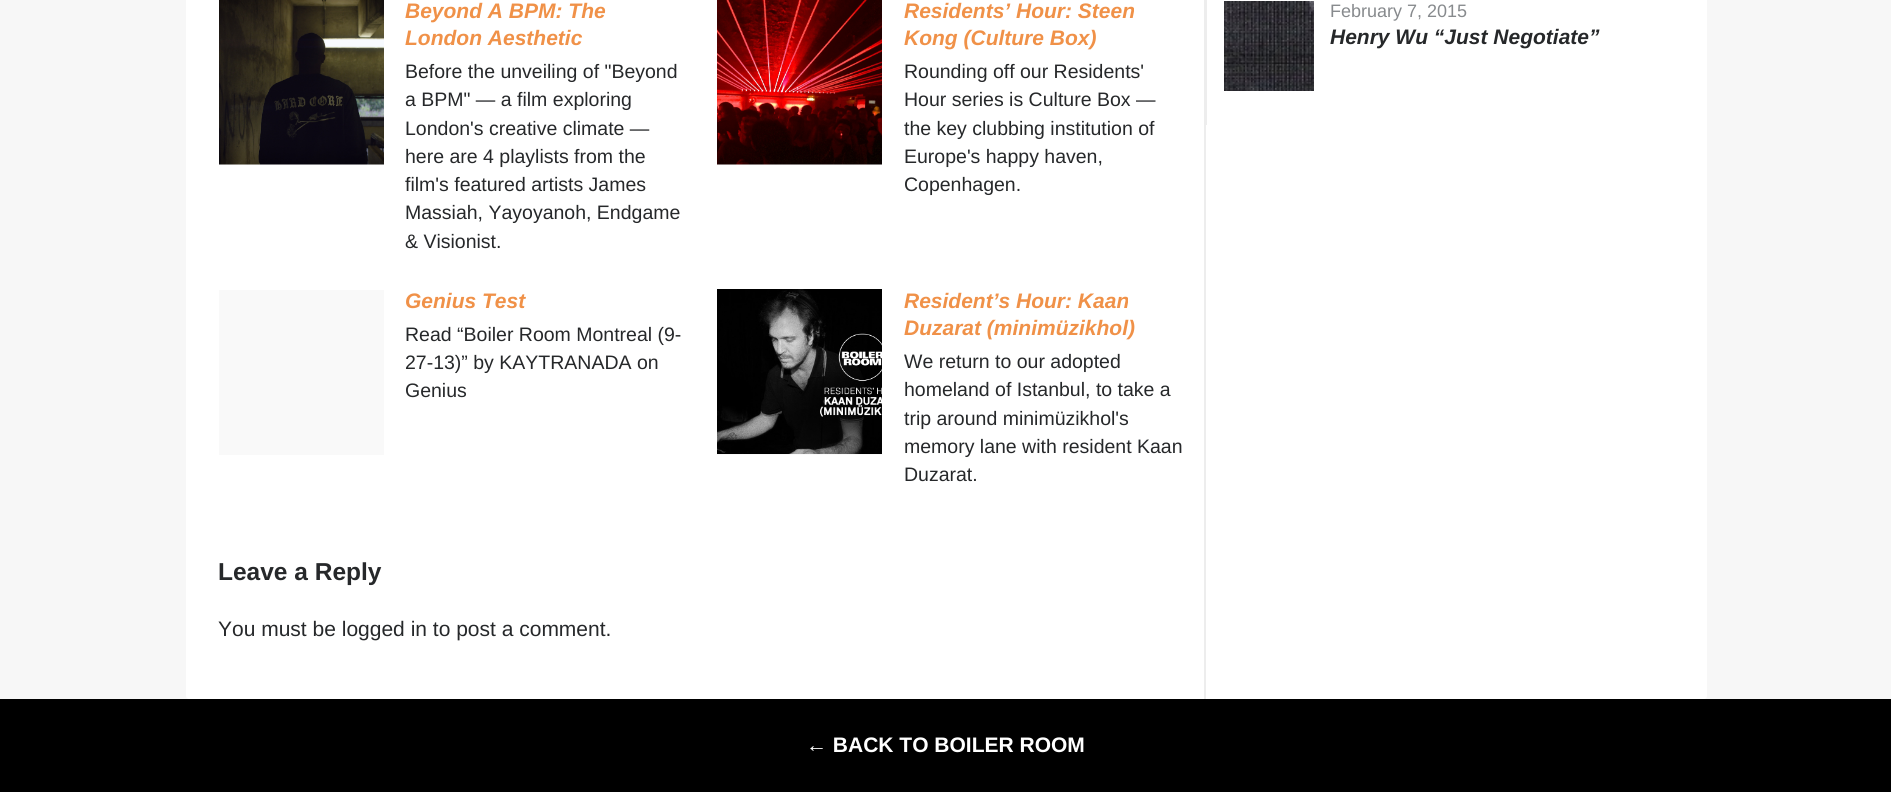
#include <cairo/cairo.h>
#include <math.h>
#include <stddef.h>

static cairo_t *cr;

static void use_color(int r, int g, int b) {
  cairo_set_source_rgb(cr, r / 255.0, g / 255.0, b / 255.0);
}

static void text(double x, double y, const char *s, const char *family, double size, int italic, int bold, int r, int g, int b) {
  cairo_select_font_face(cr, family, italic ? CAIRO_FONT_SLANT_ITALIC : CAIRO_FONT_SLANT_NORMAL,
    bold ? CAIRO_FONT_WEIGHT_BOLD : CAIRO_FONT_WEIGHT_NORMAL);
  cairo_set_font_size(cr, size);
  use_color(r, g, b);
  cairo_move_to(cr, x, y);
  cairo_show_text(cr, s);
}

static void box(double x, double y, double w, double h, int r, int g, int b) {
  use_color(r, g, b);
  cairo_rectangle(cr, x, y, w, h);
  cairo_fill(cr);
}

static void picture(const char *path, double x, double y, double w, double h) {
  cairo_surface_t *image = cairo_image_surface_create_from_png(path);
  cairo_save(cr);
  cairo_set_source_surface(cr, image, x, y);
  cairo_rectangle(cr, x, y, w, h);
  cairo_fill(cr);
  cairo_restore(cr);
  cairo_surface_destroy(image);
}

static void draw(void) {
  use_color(247, 247, 247);
  cairo_paint(cr);
  use_color(255, 255, 255);
  cairo_new_path(cr);
  cairo_move_to(cr, 186, -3);
  cairo_line_to(cr, 1707, -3);
  cairo_line_to(cr, 1707, 696);
  cairo_curve_to(cr, 1707, 697.5, 1705.5, 699, 1704, 699);
  cairo_line_to(cr, 189, 699);
  cairo_curve_to(cr, 187.5, 699, 186, 697.5, 186, 696);
  cairo_close_path(cr);
  cairo_fill(cr);
  box(1204, 0, 2, 699, 237, 237, 237);
  box(219, 164, 165, 1, 249, 249, 249);
  picture("img_01.png", 219, 0, 165, 165);
  box(717, 164, 165, 1, 249, 249, 249);
  picture("img_02.png", 717, 0, 165, 165);
  box(219, 290, 165, 165, 249, 249, 249);
  box(717, 454, 165, 1, 249, 249, 249);
  picture("img_03.png", 717, 289, 165, 165);
  box(1206, 0, 1, 125, 237, 237, 237);
  picture("img_04.png", 1224, 1, 90, 90);
  box(0, 699, 1891, 93, 0, 0, 0);
  text(405, 18, "Beyond A BPM: The", "Liberation Sans", 21, 1, 1, 240, 145, 72);
  text(405, 45, "London Aesthetic", "Liberation Sans", 21, 1, 1, 240, 145, 72);
  text(405, 78, "Before the unveiling of \"Beyond", "Liberation Sans", 19.5, 0, 0, 38, 40, 42);
  text(405, 106, "a BPM\" — a film exploring", "Liberation Sans", 19.5, 0, 0, 38, 40, 42);
  text(405, 135, "London's creative climate —", "Liberation Sans", 19.5, 0, 0, 38, 40, 42);
  text(405, 163, "here are 4 playlists from the", "Liberation Sans", 19.5, 0, 0, 38, 40, 42);
  text(405, 191, "film's featured artists James", "Liberation Sans", 19.5, 0, 0, 38, 40, 42);
  text(405, 219, "Massiah, Yayoyanoh, Endgame", "Liberation Sans", 19.5, 0, 0, 38, 40, 42);
  text(405, 248, "& Visionist.", "Liberation Sans", 19.5, 0, 0, 38, 40, 42);
  text(904, 18, "Residents’ Hour: Steen", "Liberation Sans", 21, 1, 1, 240, 145, 72);
  text(904, 45, "Kong (Culture Box)", "Liberation Sans", 21, 1, 1, 240, 145, 72);
  text(904, 78, "Rounding off our Residents'", "Liberation Sans", 19.5, 0, 0, 38, 40, 42);
  text(904, 106, "Hour series is Culture Box —", "Liberation Sans", 19.5, 0, 0, 38, 40, 42);
  text(904, 135, "the key clubbing institution of", "Liberation Sans", 19.5, 0, 0, 38, 40, 42);
  text(904, 163, "Europe's happy haven,", "Liberation Sans", 19.5, 0, 0, 38, 40, 42);
  text(904, 191, "Copenhagen.", "Liberation Sans", 19.5, 0, 0, 38, 40, 42);
  text(405, 308, "Genius Test", "Liberation Sans", 21, 1, 1, 240, 145, 72);
  text(405, 341, "Read “Boiler Room Montreal (9-", "Liberation Sans", 19.5, 0, 0, 38, 40, 42);
  text(405, 369, "27-13)” by KAYTRANADA on", "Liberation Sans", 19.5, 0, 0, 38, 40, 42);
  text(405, 397, "Genius", "Liberation Sans", 19.5, 0, 0, 38, 40, 42);
  text(904, 308, "Resident’s Hour: Kaan", "Liberation Sans", 21, 1, 1, 240, 145, 72);
  text(904, 335, "Duzarat (minimüzikhol)", "Liberation Sans", 21, 1, 1, 240, 145, 72);
  text(904, 368, "We return to our adopted", "Liberation Sans", 19.5, 0, 0, 38, 40, 42);
  text(904, 396, "homeland of Istanbul, to take a", "Liberation Sans", 19.5, 0, 0, 38, 40, 42);
  text(904, 425, "trip around minimüzikhol's", "Liberation Sans", 19.5, 0, 0, 38, 40, 42);
  text(904, 453, "memory lane with resident Kaan", "Liberation Sans", 19.5, 0, 0, 38, 40, 42);
  text(904, 481, "Duzarat.", "Liberation Sans", 19.5, 0, 0, 38, 40, 42);
  text(218, 580, "Leave a Reply", "Liberation Sans", 24.5, 0, 1, 38, 40, 42);
  text(218, 636, "You must be logged in to post a comment.", "Liberation Sans", 21, 0, 0, 38, 40, 42);
  text(1330, 17, "February 7, 2015", "Liberation Sans", 18, 0, 0, 135, 138, 141);
  text(1330, 44, "Henry Wu “Just Negotiate”", "Liberation Sans", 21, 1, 1, 38, 40, 42);
  text(806, 752, "← BACK TO BOILER ROOM", "Liberation Sans", 21, 0, 1, 255, 255, 255);
}

int main(void) {
  cairo_surface_t *surface = cairo_image_surface_create(CAIRO_FORMAT_RGB24, 1891, 792);
  cr = cairo_create(surface);
  cairo_font_options_t *options = cairo_font_options_create();
  cairo_font_options_set_hint_metrics(options, CAIRO_HINT_METRICS_OFF);
  cairo_font_options_set_hint_style(options, CAIRO_HINT_STYLE_NONE);
  cairo_set_font_options(cr, options);
  cairo_set_miter_limit(cr, 4);
  draw();
  cairo_surface_write_to_png(surface, "out.png");
  cairo_font_options_destroy(options);
  cairo_destroy(cr);
  cairo_surface_destroy(surface);
  return 0;
}
